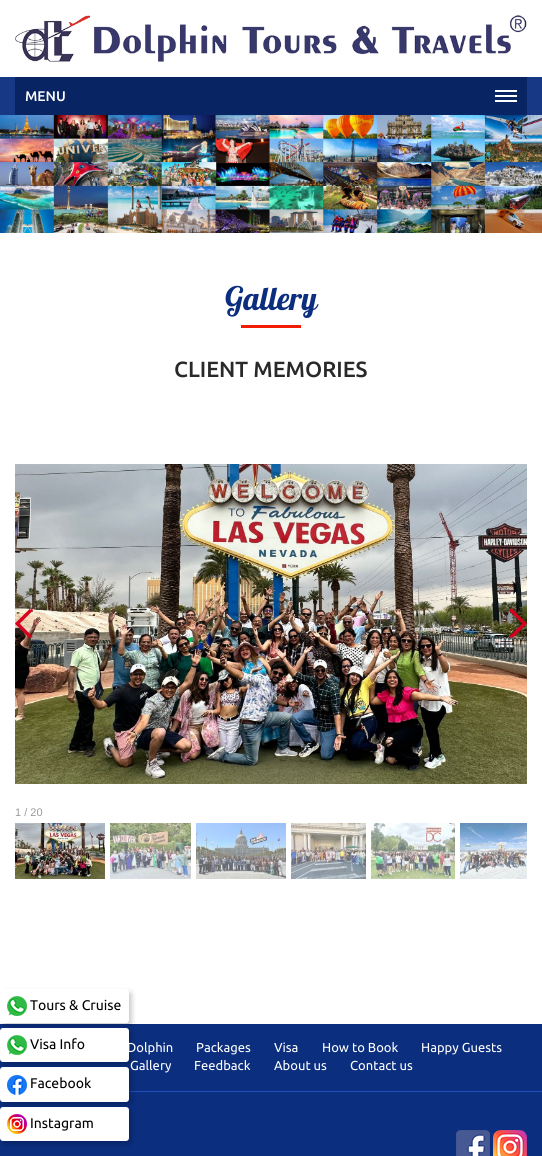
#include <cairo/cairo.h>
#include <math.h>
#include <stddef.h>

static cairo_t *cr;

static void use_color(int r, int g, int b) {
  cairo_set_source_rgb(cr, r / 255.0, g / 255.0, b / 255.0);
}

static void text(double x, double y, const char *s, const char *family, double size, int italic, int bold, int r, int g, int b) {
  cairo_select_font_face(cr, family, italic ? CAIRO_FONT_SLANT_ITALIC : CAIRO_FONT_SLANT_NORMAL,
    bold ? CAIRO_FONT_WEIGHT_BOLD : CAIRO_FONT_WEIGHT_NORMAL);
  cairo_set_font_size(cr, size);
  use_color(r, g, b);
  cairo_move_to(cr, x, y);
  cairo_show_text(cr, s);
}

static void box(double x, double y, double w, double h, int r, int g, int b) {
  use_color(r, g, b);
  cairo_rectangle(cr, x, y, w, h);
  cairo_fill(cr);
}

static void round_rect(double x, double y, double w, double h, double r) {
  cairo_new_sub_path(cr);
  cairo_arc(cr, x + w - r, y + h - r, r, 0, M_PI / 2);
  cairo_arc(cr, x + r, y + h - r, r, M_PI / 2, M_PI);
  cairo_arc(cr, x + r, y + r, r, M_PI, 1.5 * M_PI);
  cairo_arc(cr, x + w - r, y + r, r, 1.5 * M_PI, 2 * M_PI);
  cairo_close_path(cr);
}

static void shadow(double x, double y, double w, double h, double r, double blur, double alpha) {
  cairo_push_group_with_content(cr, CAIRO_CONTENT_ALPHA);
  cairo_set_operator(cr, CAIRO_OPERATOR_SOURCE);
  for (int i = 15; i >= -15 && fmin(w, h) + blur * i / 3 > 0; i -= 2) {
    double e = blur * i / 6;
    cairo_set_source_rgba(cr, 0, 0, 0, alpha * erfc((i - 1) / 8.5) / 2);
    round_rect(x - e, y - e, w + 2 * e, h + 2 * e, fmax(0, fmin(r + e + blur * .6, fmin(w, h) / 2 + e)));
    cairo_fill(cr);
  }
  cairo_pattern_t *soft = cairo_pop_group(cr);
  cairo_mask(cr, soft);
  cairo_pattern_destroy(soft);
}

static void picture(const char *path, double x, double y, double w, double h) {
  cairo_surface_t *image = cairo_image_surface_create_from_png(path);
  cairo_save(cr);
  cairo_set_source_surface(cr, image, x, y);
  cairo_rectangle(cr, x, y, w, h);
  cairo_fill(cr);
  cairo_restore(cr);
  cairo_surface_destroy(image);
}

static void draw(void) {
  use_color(255, 255, 255);
  cairo_paint(cr);
  picture("img_01.png", 15, 15, 512, 47);
  box(0, 77, 542, 38, 23, 57, 133);
  box(15, 77, 512, 38, 9, 36, 98);
  box(495, 90, 22, 2, 255, 255, 255);
  box(495, 95, 22, 2, 255, 255, 255);
  box(495, 100, 22, 2, 255, 255, 255);
  picture("img_02.png", 0, 115, 542, 118);
  box(241, 325, 60, 3, 241, 28, 0);
  picture("img_03.png", 15, 464, 512, 320);
  picture("img_04.png", 15, 608, 19, 30);
  picture("img_05.png", 508, 608, 19, 30);
  picture("img_06.png", 15, 823, 90, 56);
  picture("img_07.png", 110, 823, 81, 56);
  picture("img_08.png", 196, 823, 90, 56);
  picture("img_09.png", 291, 823, 75, 56);
  picture("img_10.png", 371, 823, 84, 56);
  picture("img_11.png", 460, 823, 67, 56);
  box(0, 1024, 542, 67, 11, 46, 126);
  use_color(0, 0, 0);
  shadow(3, 992, 129, 34, 3, 2.5, 0.2);
  use_color(255, 255, 255);
  round_rect(0, 989, 129, 34, 3);
  cairo_fill(cr);
  picture("img_12.png", 7, 996, 20, 20);
  use_color(0, 0, 0);
  shadow(3, 1031, 129, 34, 3, 2.5, 0.2);
  use_color(255, 255, 255);
  round_rect(0, 1028, 129, 34, 3);
  cairo_fill(cr);
  picture("img_12.png", 7, 1035, 20, 20);
  box(129, 1091, 413, 1, 31, 78, 184);
  box(0, 1092, 542, 64, 11, 46, 126);
  use_color(0, 0, 0);
  shadow(3, 1070, 129, 35, 3, 2.5, 0.2);
  use_color(255, 255, 255);
  round_rect(0, 1067, 129, 35, 3);
  cairo_fill(cr);
  picture("img_13.png", 7, 1075, 20, 20);
  use_color(0, 0, 0);
  shadow(3, 1110, 129, 34, 3, 2.5, 0.2);
  use_color(255, 255, 255);
  round_rect(0, 1107, 129, 34, 3);
  cairo_fill(cr);
  picture("img_14.png", 7, 1114, 20, 20);
  picture("img_15.png", 456, 1130, 34, 26);
  picture("img_16.png", 493, 1130, 34, 26);
  text(25, 101, "MENU", "Ubuntu Medium", 14, 0, 0, 255, 255, 255);
  text(225, 310, "Gallery", "Lobster", 32, 0, 0, 11, 46, 126);
  text(174, 377, "CLIENT MEMORIES", "Ubuntu Medium", 22, 0, 0, 41, 41, 41);
  text(15, 816, "1 / 20", "Liberation Sans", 11, 0, 0, 153, 153, 153);
  text(30, 1010, "Tours & Cruise", "Ubuntu", 14, 0, 0, 0, 0, 0);
  text(30, 1049, "Visa Info", "Ubuntu", 14, 0, 0, 0, 0, 0);
  text(30, 1088, "Facebook", "Ubuntu", 14, 0, 0, 0, 0, 0);
  text(30, 1128, "Instagram", "Ubuntu", 14, 0, 0, 0, 0, 0);
  text(127, 1052, "Dolphin", "Ubuntu", 13, 0, 0, 255, 255, 255);
  text(196, 1052, "Packages", "Ubuntu", 13, 0, 0, 255, 255, 255);
  text(274, 1052, "Visa", "Ubuntu", 13, 0, 0, 255, 255, 255);
  text(322, 1052, "How to Book", "Ubuntu", 13, 0, 0, 255, 255, 255);
  text(421, 1052, "Happy Guests", "Ubuntu", 13, 0, 0, 255, 255, 255);
  text(130, 1070, "Gallery", "Ubuntu", 13, 0, 0, 255, 255, 255);
  text(194, 1070, "Feedback", "Ubuntu", 13, 0, 0, 255, 255, 255);
  text(274, 1070, "About us", "Ubuntu", 13, 0, 0, 255, 255, 255);
  text(350, 1070, "Contact us", "Ubuntu", 13, 0, 0, 255, 255, 255);
}

int main(void) {
  cairo_surface_t *surface = cairo_image_surface_create(CAIRO_FORMAT_RGB24, 542, 1156);
  cr = cairo_create(surface);
  cairo_font_options_t *options = cairo_font_options_create();
  cairo_font_options_set_hint_metrics(options, CAIRO_HINT_METRICS_OFF);
  cairo_font_options_set_hint_style(options, CAIRO_HINT_STYLE_NONE);
  cairo_set_font_options(cr, options);
  cairo_set_miter_limit(cr, 4);
  draw();
  cairo_surface_write_to_png(surface, "out.png");
  cairo_font_options_destroy(options);
  cairo_destroy(cr);
  cairo_surface_destroy(surface);
  return 0;
}
